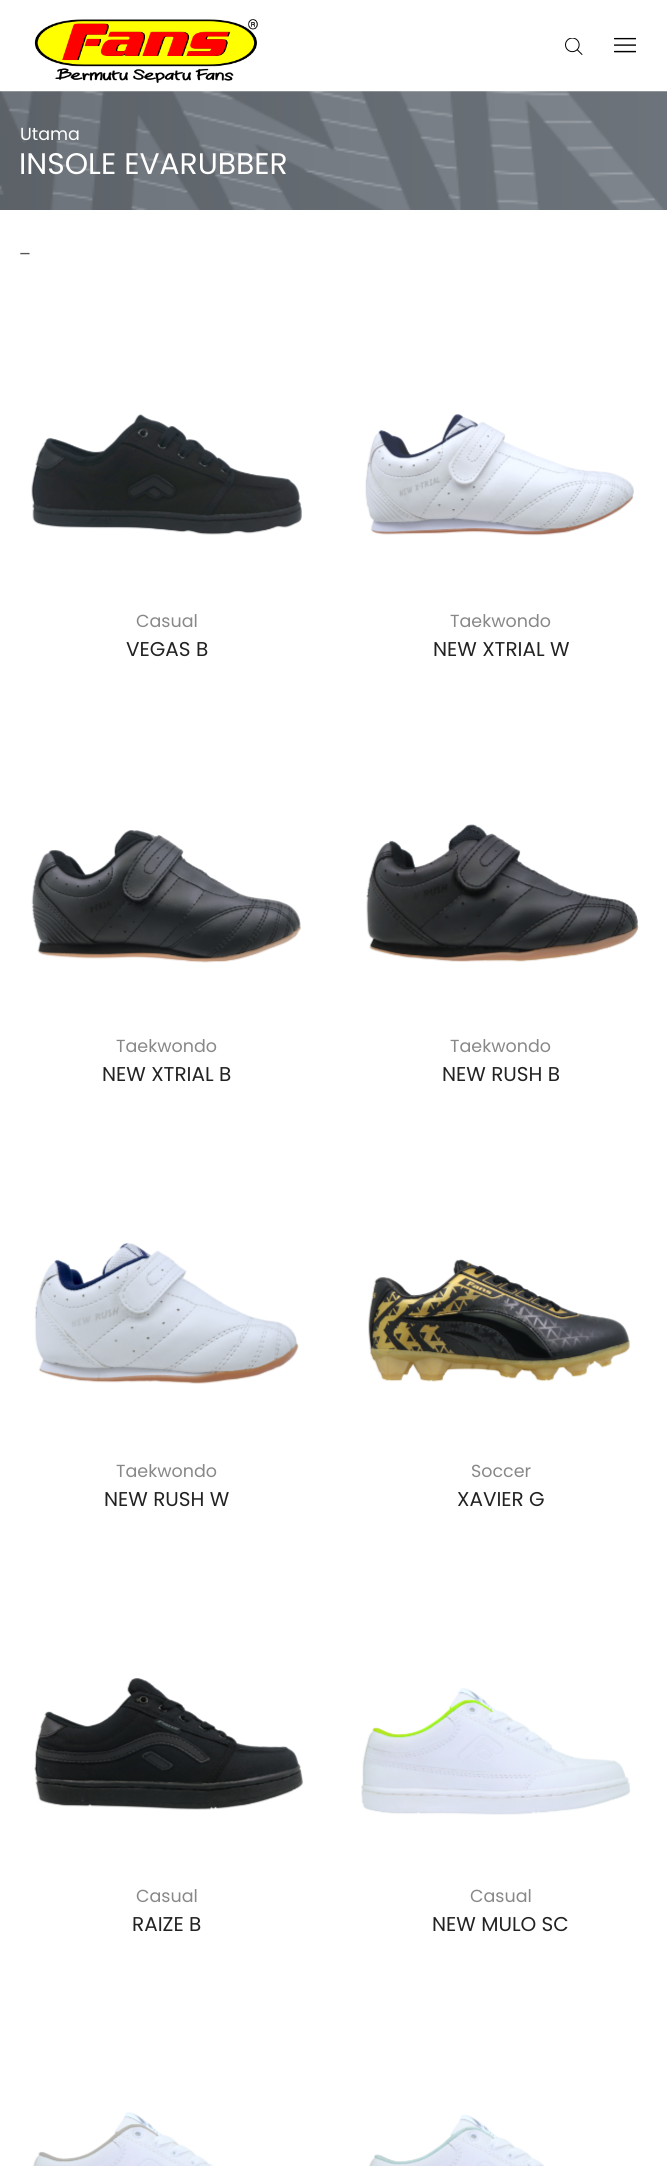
#include <cairo/cairo.h>
#include <math.h>
#include <stddef.h>

static cairo_t *cr;

static void use_color(int r, int g, int b) {
  cairo_set_source_rgb(cr, r / 255.0, g / 255.0, b / 255.0);
}

static void text(double x, double y, const char *s, const char *family, double size, int italic, int bold, int r, int g, int b) {
  cairo_select_font_face(cr, family, italic ? CAIRO_FONT_SLANT_ITALIC : CAIRO_FONT_SLANT_NORMAL,
    bold ? CAIRO_FONT_WEIGHT_BOLD : CAIRO_FONT_WEIGHT_NORMAL);
  cairo_set_font_size(cr, size);
  use_color(r, g, b);
  cairo_move_to(cr, x, y);
  cairo_show_text(cr, s);
}

static void picture(const char *path, double x, double y, double w, double h) {
  cairo_surface_t *image = cairo_image_surface_create_from_png(path);
  cairo_save(cr);
  cairo_set_source_surface(cr, image, x, y);
  cairo_rectangle(cr, x, y, w, h);
  cairo_fill(cr);
  cairo_restore(cr);
  cairo_surface_destroy(image);
}

static void draw(void) {
  use_color(255, 255, 255);
  cairo_paint(cr);
  picture("img_01.png", 34, 19, 224, 64);
  picture("img_02.png", 565, 38, 18, 17);
  picture("img_03.png", 614, 37, 22, 16);
  picture("img_04.png", 0, 91, 667, 119);
  picture("img_05.png", 31, 414, 271, 121);
  picture("img_06.png", 365, 414, 269, 122);
  picture("img_07.png", 31, 830, 270, 133);
  picture("img_08.png", 366, 824, 273, 138);
  picture("img_09.png", 34, 1243, 265, 141);
  picture("img_10.png", 368, 1259, 262, 123);
  picture("img_11.png", 34, 1678, 270, 132);
  picture("img_12.png", 361, 1688, 270, 127);
  picture("img_13.png", 33, 2112, 180, 54);
  picture("img_14.png", 369, 2114, 175, 52);
  text(20, 140, "Utama", "Poppins", 17.5, 0, 0, 255, 255, 255);
  text(19, 174, "INSOLE EVARUBBER", "Poppins", 29.75, 0, 0, 255, 255, 255);
  text(19, 260, "–", "Poppins", 17.5, 0, 0, 85, 85, 85);
  text(136, 627, "Casual", "Poppins", 17.5, 0, 0, 136, 136, 136);
  text(126, 656, "VEGAS B", "Poppins", 20, 0, 0, 34, 34, 34);
  text(450, 627, "Taekwondo", "Poppins", 17.5, 0, 0, 136, 136, 136);
  text(433, 656, "NEW XTRIAL W", "Poppins", 20, 0, 0, 34, 34, 34);
  text(116, 1052, "Taekwondo", "Poppins", 17.5, 0, 0, 136, 136, 136);
  text(102, 1081, "NEW XTRIAL B", "Poppins", 20, 0, 0, 34, 34, 34);
  text(450, 1052, "Taekwondo", "Poppins", 17.5, 0, 0, 136, 136, 136);
  text(442, 1081, "NEW RUSH B", "Poppins", 20, 0, 0, 34, 34, 34);
  text(116, 1477, "Taekwondo", "Poppins", 17.5, 0, 0, 136, 136, 136);
  text(104, 1506, "NEW RUSH W", "Poppins", 20, 0, 0, 34, 34, 34);
  text(471, 1477, "Soccer", "Poppins", 17.5, 0, 0, 136, 136, 136);
  text(457, 1506, "XAVIER G", "Poppins", 20, 0, 0, 34, 34, 34);
  text(136, 1902, "Casual", "Poppins", 17.5, 0, 0, 136, 136, 136);
  text(132, 1931, "RAIZE B", "Poppins", 20, 0, 0, 34, 34, 34);
  text(470, 1902, "Casual", "Poppins", 17.5, 0, 0, 136, 136, 136);
  text(432, 1931, "NEW MULO SC", "Poppins", 20, 0, 0, 34, 34, 34);
}

int main(void) {
  cairo_surface_t *surface = cairo_image_surface_create(CAIRO_FORMAT_RGB24, 667, 2166);
  cr = cairo_create(surface);
  cairo_font_options_t *options = cairo_font_options_create();
  cairo_font_options_set_hint_metrics(options, CAIRO_HINT_METRICS_OFF);
  cairo_font_options_set_hint_style(options, CAIRO_HINT_STYLE_NONE);
  cairo_set_font_options(cr, options);
  cairo_set_miter_limit(cr, 4);
  draw();
  cairo_surface_write_to_png(surface, "out.png");
  cairo_font_options_destroy(options);
  cairo_destroy(cr);
  cairo_surface_destroy(surface);
  return 0;
}
